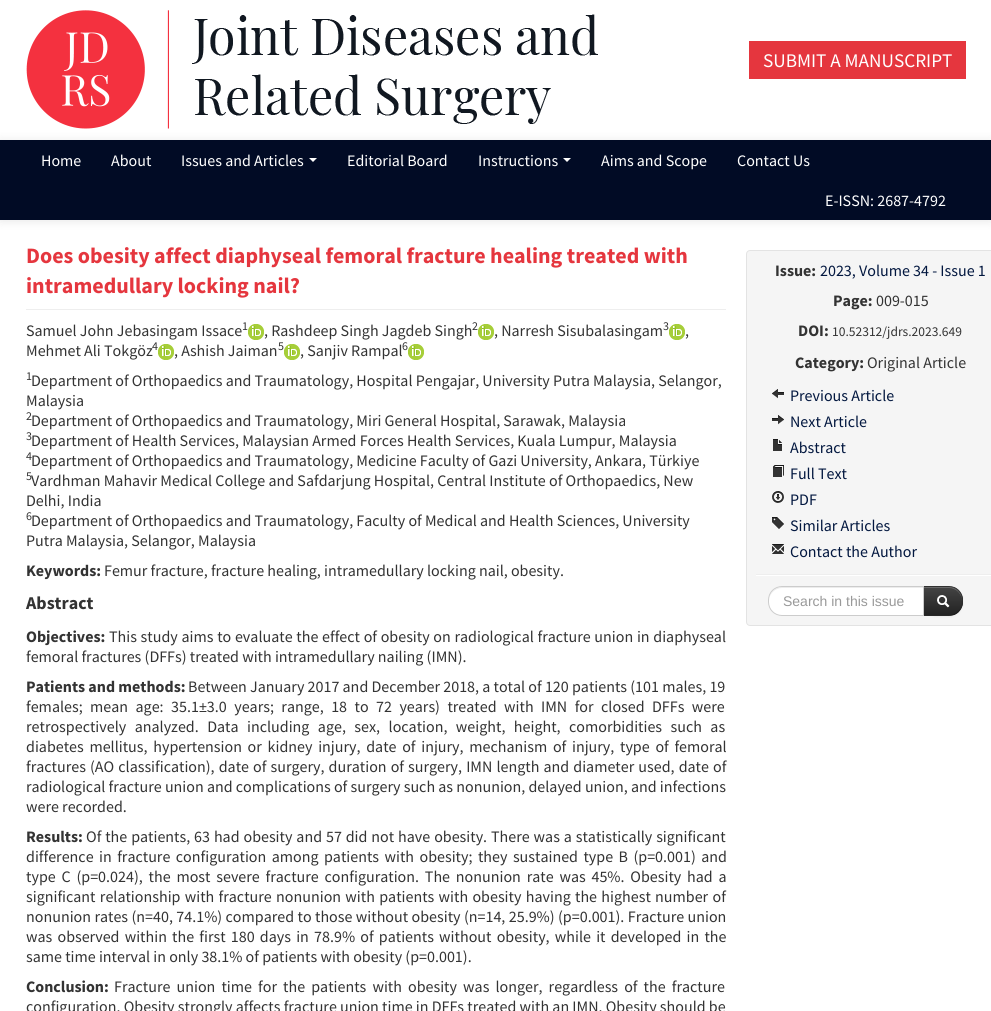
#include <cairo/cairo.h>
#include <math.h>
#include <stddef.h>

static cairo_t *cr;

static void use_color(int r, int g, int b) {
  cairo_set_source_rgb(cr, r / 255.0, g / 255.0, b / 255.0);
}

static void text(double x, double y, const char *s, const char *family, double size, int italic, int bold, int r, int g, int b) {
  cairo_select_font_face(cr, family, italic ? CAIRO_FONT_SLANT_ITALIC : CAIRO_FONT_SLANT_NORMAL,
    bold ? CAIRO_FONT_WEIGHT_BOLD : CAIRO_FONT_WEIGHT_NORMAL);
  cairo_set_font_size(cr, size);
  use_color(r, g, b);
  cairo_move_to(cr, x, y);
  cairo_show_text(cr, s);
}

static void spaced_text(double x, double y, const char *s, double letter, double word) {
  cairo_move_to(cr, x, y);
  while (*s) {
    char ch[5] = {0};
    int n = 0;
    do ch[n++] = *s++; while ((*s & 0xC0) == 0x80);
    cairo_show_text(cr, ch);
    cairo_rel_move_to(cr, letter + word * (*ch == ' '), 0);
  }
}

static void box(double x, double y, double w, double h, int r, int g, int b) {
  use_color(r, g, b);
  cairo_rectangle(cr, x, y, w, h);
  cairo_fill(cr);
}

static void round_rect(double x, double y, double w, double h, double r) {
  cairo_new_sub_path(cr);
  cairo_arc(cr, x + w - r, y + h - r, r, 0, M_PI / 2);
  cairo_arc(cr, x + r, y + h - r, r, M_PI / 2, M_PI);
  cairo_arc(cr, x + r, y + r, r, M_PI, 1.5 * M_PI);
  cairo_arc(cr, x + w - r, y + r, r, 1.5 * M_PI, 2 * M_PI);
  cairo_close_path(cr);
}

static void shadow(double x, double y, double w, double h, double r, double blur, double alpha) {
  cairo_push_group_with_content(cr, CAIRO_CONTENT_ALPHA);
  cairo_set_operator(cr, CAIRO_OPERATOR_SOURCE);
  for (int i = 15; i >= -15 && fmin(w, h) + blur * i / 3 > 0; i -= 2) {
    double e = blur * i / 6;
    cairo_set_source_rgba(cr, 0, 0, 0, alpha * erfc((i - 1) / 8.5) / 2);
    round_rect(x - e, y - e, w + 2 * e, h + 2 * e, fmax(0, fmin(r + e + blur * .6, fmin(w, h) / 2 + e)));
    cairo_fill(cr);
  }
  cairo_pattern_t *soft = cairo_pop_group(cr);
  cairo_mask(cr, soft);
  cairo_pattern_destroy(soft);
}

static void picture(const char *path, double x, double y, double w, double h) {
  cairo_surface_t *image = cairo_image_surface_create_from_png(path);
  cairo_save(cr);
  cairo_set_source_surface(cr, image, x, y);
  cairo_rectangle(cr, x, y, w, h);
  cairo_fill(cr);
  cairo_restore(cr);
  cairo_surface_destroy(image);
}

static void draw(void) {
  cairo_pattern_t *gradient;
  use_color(255, 255, 255);
  cairo_paint(cr);
  use_color(0, 0, 0);
  shadow(0, 141, 991, 80, 0, 5, 0.1);
  picture("img_01.png", 26, 10, 572, 119);
  box(749, 41, 217, 38, 229, 54, 62);
  box(0, 140, 991, 80, 1, 11, 37);
  use_color(254, 254, 254);
  cairo_new_path(cr);
  cairo_move_to(cr, 309, 158);
  cairo_line_to(cr, 317, 158);
  cairo_line_to(cr, 313, 162);
  cairo_close_path(cr);
  cairo_fill(cr);
  cairo_new_path(cr);
  cairo_move_to(cr, 563, 158);
  cairo_line_to(cr, 571, 158);
  cairo_line_to(cr, 567, 162);
  cairo_close_path(cr);
  cairo_fill(cr);
  box(26, 309, 700, 1, 238, 238, 238);
  picture("img_02.png", 248, 324, 16, 16);
  picture("img_02.png", 478, 324, 16, 16);
  picture("img_02.png", 669, 324, 16, 16);
  picture("img_02.png", 158, 344, 16, 16);
  picture("img_02.png", 284, 344, 16, 16);
  picture("img_02.png", 408, 344, 16, 16);
  use_color(245, 245, 245);
  round_rect(746.5, 250.5, 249, 375, 3.5);
  cairo_fill_preserve(cr);
  use_color(227, 227, 227);
  cairo_set_line_width(cr, 1);
  cairo_stroke(cr);
  picture("img_03.png", 772, 389, 12, 10);
  picture("img_04.png", 772, 415, 12, 10);
  picture("img_05.png", 773, 439, 9, 12);
  picture("img_06.png", 773, 465, 11, 12);
  picture("img_07.png", 772, 491, 12, 12);
  picture("img_08.png", 772, 517, 12, 12);
  picture("img_09.png", 772, 544, 12, 10);
  box(756, 574, 235, 1, 238, 238, 238);
  box(756, 575, 235, 1, 255, 255, 255);
  use_color(0, 0, 0);
  shadow(923, 587, 40, 30, 14, 1, 0.05);
  use_color(54, 54, 54);
  cairo_new_path(cr);
  cairo_move_to(cr, 923, 586);
  cairo_line_to(cr, 949, 586);
  cairo_curve_to(cr, 956.5, 586, 963, 592.5, 963, 600);
  cairo_line_to(cr, 963, 602);
  cairo_curve_to(cr, 963, 609.5, 956.5, 616, 949, 616);
  cairo_line_to(cr, 923, 616);
  cairo_close_path(cr);
  cairo_fill(cr);
  cairo_save(cr);
  cairo_new_path(cr);
  cairo_move_to(cr, 923, 586);
  cairo_line_to(cr, 949, 586);
  cairo_curve_to(cr, 956.5, 586, 963, 592.5, 963, 600);
  cairo_line_to(cr, 963, 602);
  cairo_curve_to(cr, 963, 609.5, 956.5, 616, 949, 616);
  cairo_line_to(cr, 923, 616);
  cairo_close_path(cr);
  cairo_clip(cr);
  gradient = cairo_pattern_create_linear(943, 587, 943, 615);
  cairo_pattern_add_color_stop_rgba(gradient, 0, 0.267, 0.267, 0.267, 1);
  cairo_pattern_add_color_stop_rgba(gradient, 1, 0.133, 0.133, 0.133, 1);
  cairo_set_source(cr, gradient);
  cairo_pattern_destroy(gradient);
  cairo_rectangle(cr, 924, 587, 39, 28);
  cairo_fill(cr);
  cairo_restore(cr);
  cairo_set_source_rgba(cr, 1, 1, 1, 0.2);
  cairo_new_path(cr);
  cairo_move_to(cr, 924, 588);
  cairo_line_to(cr, 949, 588);
  cairo_curve_to(cr, 956, 588, 962, 594, 962, 601);
  cairo_line_to(cr, 962, 600);
  cairo_curve_to(cr, 962, 593, 956, 587, 949, 587);
  cairo_line_to(cr, 924, 587);
  cairo_close_path(cr);
  cairo_fill(cr);
  cairo_set_source_rgba(cr, 0, 0, 0, 0.1);
  cairo_new_path(cr);
  cairo_move_to(cr, 923, 586);
  cairo_line_to(cr, 924, 587);
  cairo_line_to(cr, 949, 587);
  cairo_curve_to(cr, 952.5, 587, 956, 588.5, 958, 591);
  cairo_line_to(cr, 959, 590);
  cairo_curve_to(cr, 956.5, 587.5, 953, 586, 949, 586);
  cairo_close_path(cr);
  cairo_fill(cr);
  cairo_new_path(cr);
  cairo_move_to(cr, 963, 602);
  cairo_curve_to(cr, 963, 597.5, 962.5, 593.5, 959, 590);
  cairo_line_to(cr, 958, 591);
  cairo_curve_to(cr, 963.5, 596, 963.5, 606, 958, 611);
  cairo_line_to(cr, 959, 612);
  cairo_curve_to(cr, 961.5, 609.5, 963, 606, 963, 602);
  cairo_close_path(cr);
  cairo_fill(cr);
  cairo_set_source_rgba(cr, 0, 0, 0, 0.25);
  cairo_new_path(cr);
  cairo_move_to(cr, 949, 616);
  cairo_curve_to(cr, 953, 616, 956.5, 614.5, 959, 612);
  cairo_line_to(cr, 958, 611);
  cairo_curve_to(cr, 956, 613.5, 952.5, 615, 949, 615);
  cairo_line_to(cr, 924, 615);
  cairo_line_to(cr, 923, 616);
  cairo_close_path(cr);
  cairo_fill(cr);
  use_color(255, 255, 255);
  cairo_new_path(cr);
  cairo_move_to(cr, 782, 586);
  cairo_line_to(cr, 924, 586);
  cairo_line_to(cr, 924, 616);
  cairo_line_to(cr, 782, 616);
  cairo_curve_to(cr, 774.5, 616, 768, 609.5, 768, 602);
  cairo_line_to(cr, 768, 600);
  cairo_curve_to(cr, 768, 592.5, 774.5, 586, 782, 586);
  cairo_close_path(cr);
  cairo_fill(cr);
  use_color(236, 236, 236);
  cairo_new_path(cr);
  cairo_move_to(cr, 782, 588);
  cairo_line_to(cr, 923, 588);
  cairo_line_to(cr, 923, 587);
  cairo_line_to(cr, 782, 587);
  cairo_curve_to(cr, 775, 587, 769, 593, 769, 600);
  cairo_line_to(cr, 769, 601);
  cairo_curve_to(cr, 769, 594, 775, 588, 782, 588);
  cairo_close_path(cr);
  cairo_fill(cr);
  cairo_new_path(cr);
  cairo_move_to(cr, 782, 586.5);
  cairo_line_to(cr, 923.5, 586.5);
  cairo_line_to(cr, 923.5, 615.5);
  cairo_line_to(cr, 782, 615.5);
  cairo_curve_to(cr, 774.5, 615.5, 768.5, 609.5, 768.5, 602);
  cairo_line_to(cr, 768.5, 600);
  cairo_curve_to(cr, 768.5, 592.5, 774.5, 586.5, 782, 586.5);
  cairo_close_path(cr);
  use_color(204, 204, 204);
  cairo_stroke(cr);
  picture("img_10.png", 937, 595, 13, 13);
  text(763, 67, "SUBMIT A MANUSCRIPT", "Source Sans Pro", 19.25, 0, 0, 255, 255, 255);
  text(41, 166, "Home", "Source Sans Pro", 16, 0, 0, 255, 255, 255);
  text(111, 166, "About", "Source Sans Pro", 16, 0, 0, 255, 255, 255);
  text(181, 166, "Issues and Articles", "Source Sans Pro", 16, 0, 0, 255, 255, 255);
  text(347, 166, "Editorial Board", "Source Sans Pro", 16, 0, 0, 255, 255, 255);
  text(478, 166, "Instructions", "Source Sans Pro", 16, 0, 0, 255, 255, 255);
  text(601, 166, "Aims and Scope", "Source Sans Pro", 16, 0, 0, 255, 255, 255);
  text(737, 166, "Contact Us", "Source Sans Pro", 16, 0, 0, 255, 255, 255);
  text(825, 206, "E-ISSN: 2687-4792", "Source Sans Pro", 16, 0, 0, 255, 255, 255);
  text(26, 263, "Does obesity affect diaphyseal femoral fracture healing treated with", "Source Sans Pro", 22, 0, 1, 229, 54, 62);
  text(26, 293, "intramedullary locking nail?", "Source Sans Pro", 22, 0, 1, 229, 54, 62);
  text(26, 336, "Samuel John Jebasingam Issace", "Source Sans Pro", 16, 0, 0, 51, 51, 51);
  text(242, 330, "1", "Source Sans Pro", 12, 0, 0, 51, 51, 51);
  text(264, 336, ", Rashdeep Singh Jagdeb Singh", "Source Sans Pro", 16, 0, 0, 51, 51, 51);
  text(472, 330, "2", "Source Sans Pro", 12, 0, 0, 51, 51, 51);
  text(494, 336, ", Narresh Sisubalasingam", "Source Sans Pro", 16, 0, 0, 51, 51, 51);
  text(663, 330, "3", "Source Sans Pro", 12, 0, 0, 51, 51, 51);
  text(685, 336, ",", "Source Sans Pro", 16, 0, 0, 51, 51, 51);
  text(26, 356, "Mehmet Ali Tokgöz", "Source Sans Pro", 16, 0, 0, 51, 51, 51);
  text(152, 350, "4", "Source Sans Pro", 12, 0, 0, 51, 51, 51);
  text(174, 356, ", Ashish Jaiman", "Source Sans Pro", 16, 0, 0, 51, 51, 51);
  text(278, 350, "5", "Source Sans Pro", 12, 0, 0, 51, 51, 51);
  text(300, 356, ", Sanjiv Rampal", "Source Sans Pro", 16, 0, 0, 51, 51, 51);
  text(402, 350, "6", "Source Sans Pro", 12, 0, 0, 51, 51, 51);
  text(26, 380, "1", "Source Sans Pro", 12, 0, 0, 51, 51, 51);
  text(31, 386, "Department of Orthopaedics and Traumatology, Hospital Pengajar, University Putra Malaysia, Selangor,", "Source Sans Pro", 16, 0, 0, 51, 51, 51);
  text(26, 406, "Malaysia", "Source Sans Pro", 16, 0, 0, 51, 51, 51);
  text(26, 420, "2", "Source Sans Pro", 12, 0, 0, 51, 51, 51);
  text(31, 426, "Department of Orthopaedics and Traumatology, Miri General Hospital, Sarawak, Malaysia", "Source Sans Pro", 16, 0, 0, 51, 51, 51);
  text(26, 440, "3", "Source Sans Pro", 12, 0, 0, 51, 51, 51);
  text(31, 446, "Department of Health Services, Malaysian Armed Forces Health Services, Kuala Lumpur, Malaysia", "Source Sans Pro", 16, 0, 0, 51, 51, 51);
  text(26, 460, "4", "Source Sans Pro", 12, 0, 0, 51, 51, 51);
  text(31, 466, "Department of Orthopaedics and Traumatology, Medicine Faculty of Gazi University, Ankara, Türkiye", "Source Sans Pro", 16, 0, 0, 51, 51, 51);
  text(26, 480, "5", "Source Sans Pro", 12, 0, 0, 51, 51, 51);
  text(31, 486, "Vardhman Mahavir Medical College and Safdarjung Hospital, Central Institute of Orthopaedics, New", "Source Sans Pro", 16, 0, 0, 51, 51, 51);
  text(26, 506, "Delhi, India", "Source Sans Pro", 16, 0, 0, 51, 51, 51);
  text(26, 520, "6", "Source Sans Pro", 12, 0, 0, 51, 51, 51);
  text(31, 526, "Department of Orthopaedics and Traumatology, Faculty of Medical and Health Sciences, University", "Source Sans Pro", 16, 0, 0, 51, 51, 51);
  text(26, 546, "Putra Malaysia, Selangor, Malaysia", "Source Sans Pro", 16, 0, 0, 51, 51, 51);
  text(26, 576, "Keywords:", "Source Sans Pro", 16, 0, 1, 51, 51, 51);
  text(104, 576, "Femur fracture, fracture healing, intramedullary locking nail, obesity.", "Source Sans Pro", 16, 0, 0, 51, 51, 51);
  text(26, 609, "Abstract", "Source Sans Pro", 18, 0, 1, 51, 51, 51);
  text(26, 642, "Objectives:", "Source Sans Pro", 16, 0, 1, 51, 51, 51);
  cairo_select_font_face(cr, "Source Sans Pro", CAIRO_FONT_SLANT_NORMAL, CAIRO_FONT_WEIGHT_NORMAL);
  spaced_text(109, 642, "This study aims to evaluate the effect of obesity on radiological fracture union in diaphyseal", 0, 0.5);
  text(26, 662, "femoral fractures (DFFs) treated with intramedullary nailing (IMN).", "Source Sans Pro", 16, 0, 0, 51, 51, 51);
  text(26, 692, "Patients and methods:", "Source Sans Pro", 16, 0, 1, 51, 51, 51);
  text(188, 692, "Between January 2017 and December 2018, a total of 120 patients (101 males, 19", "Source Sans Pro", 16, 0, 0, 51, 51, 51);
  spaced_text(26, 712, "females; mean age: 35.1±3.0 years; range, 18 to 72 years) treated with IMN for closed DFFs were", 0, 4.25);
  spaced_text(26, 732, "retrospectively analyzed. Data including age, sex, location, weight, height, comorbidities such as", 0, 5.25);
  spaced_text(26, 752, "diabetes mellitus, hypertension or kidney injury, date of injury, mechanism of injury, type of femoral", 0, 2.5);
  spaced_text(26, 772, "fractures (AO classification), date of surgery, duration of surgery, IMN length and diameter used, date of", 0, 0.9);
  text(26, 792, "radiological fracture union and complications of surgery such as nonunion, delayed union, and infections", "Source Sans Pro", 16, 0, 0, 51, 51, 51);
  text(26, 812, "were recorded.", "Source Sans Pro", 16, 0, 0, 51, 51, 51);
  text(26, 842, "Results:", "Source Sans Pro", 16, 0, 1, 51, 51, 51);
  cairo_select_font_face(cr, "Source Sans Pro", CAIRO_FONT_SLANT_NORMAL, CAIRO_FONT_WEIGHT_NORMAL);
  spaced_text(86, 842, "Of the patients, 63 had obesity and 57 did not have obesity. There was a statistically significant", 0, 0.7);
  spaced_text(26, 862, "difference in fracture configuration among patients with obesity; they sustained type B (p=0.001) and", 0, 2.25);
  spaced_text(26, 882, "type C (p=0.024), the most severe fracture configuration. The nonunion rate was 45%. Obesity had a", 0, 2.6);
  spaced_text(26, 902, "significant relationship with fracture nonunion with patients with obesity having the highest number of", 0, 1.1);
  spaced_text(26, 922, "nonunion rates (n=40, 74.1%) compared to those without obesity (n=14, 25.9%) (p=0.001). Fracture union", 0, 0.2);
  spaced_text(26, 942, "was observed within the first 180 days in 78.9% of patients without obesity, while it developed in the", 0, 2);
  text(26, 962, "same time interval in only 38.1% of patients with obesity (p=0.001).", "Source Sans Pro", 16, 0, 0, 51, 51, 51);
  text(26, 992, "Conclusion:", "Source Sans Pro", 16, 0, 1, 51, 51, 51);
  cairo_select_font_face(cr, "Source Sans Pro", CAIRO_FONT_SLANT_NORMAL, CAIRO_FONT_WEIGHT_NORMAL);
  spaced_text(114, 992, "Fracture union time for the patients with obesity was longer, regardless of the fracture", 0, 2.9);
  text(26, 1012, "configuration. Obesity strongly affects fracture union time in DFFs treated with an IMN. Obesity should be", "Source Sans Pro", 16, 0, 0, 51, 51, 51);
  text(775, 276, "Issue:", "Source Sans Pro", 16, 0, 1, 51, 51, 51);
  text(820, 276, "2023, Volume 34 - Issue 1", "Source Sans Pro", 16, 0, 0, 2, 23, 63);
  text(833, 306, "Page:", "Source Sans Pro", 16, 0, 1, 51, 51, 51);
  text(876, 306, "009-015", "Source Sans Pro", 16, 0, 0, 51, 51, 51);
  text(798, 336, "DOI:", "Source Sans Pro", 16, 0, 1, 51, 51, 51);
  text(832, 336, "10.52312/jdrs.2023.649", "Source Sans Pro", 13.5, 0, 0, 51, 51, 51);
  text(795, 368, "Category:", "Source Sans Pro", 16, 0, 1, 51, 51, 51);
  text(867, 368, "Original Article", "Source Sans Pro", 16, 0, 0, 51, 51, 51);
  text(790, 401, "Previous Article", "Source Sans Pro", 16, 0, 0, 2, 23, 63);
  text(790, 427, "Next Article", "Source Sans Pro", 16, 0, 0, 2, 23, 63);
  text(790, 453, "Abstract", "Source Sans Pro", 16, 0, 0, 2, 23, 63);
  text(790, 479, "Full Text", "Source Sans Pro", 16, 0, 0, 2, 23, 63);
  text(790, 505, "PDF", "Source Sans Pro", 16, 0, 0, 2, 23, 63);
  text(790, 531, "Similar Articles", "Source Sans Pro", 16, 0, 0, 2, 23, 63);
  text(790, 557, "Contact the Author", "Source Sans Pro", 16, 0, 0, 2, 23, 63);
  text(783, 606, "Search in this issue", "Liberation Sans", 14, 0, 0, 153, 153, 153);
}

int main(void) {
  cairo_surface_t *surface = cairo_image_surface_create(CAIRO_FORMAT_RGB24, 991, 1011);
  cr = cairo_create(surface);
  cairo_font_options_t *options = cairo_font_options_create();
  cairo_font_options_set_hint_metrics(options, CAIRO_HINT_METRICS_OFF);
  cairo_font_options_set_hint_style(options, CAIRO_HINT_STYLE_NONE);
  cairo_set_font_options(cr, options);
  cairo_set_miter_limit(cr, 4);
  draw();
  cairo_surface_write_to_png(surface, "out.png");
  cairo_font_options_destroy(options);
  cairo_destroy(cr);
  cairo_surface_destroy(surface);
  return 0;
}
